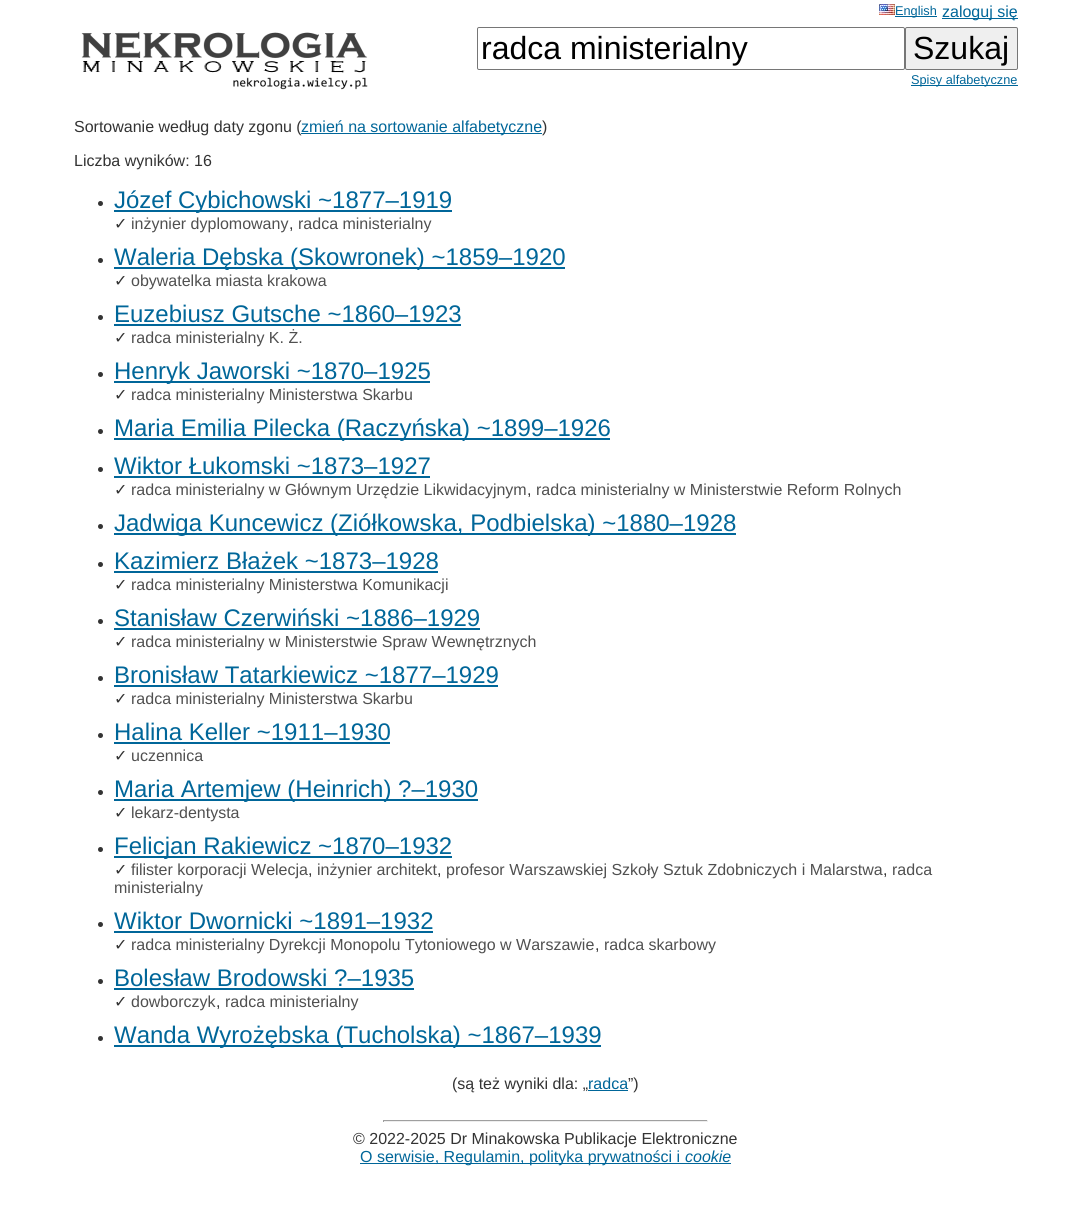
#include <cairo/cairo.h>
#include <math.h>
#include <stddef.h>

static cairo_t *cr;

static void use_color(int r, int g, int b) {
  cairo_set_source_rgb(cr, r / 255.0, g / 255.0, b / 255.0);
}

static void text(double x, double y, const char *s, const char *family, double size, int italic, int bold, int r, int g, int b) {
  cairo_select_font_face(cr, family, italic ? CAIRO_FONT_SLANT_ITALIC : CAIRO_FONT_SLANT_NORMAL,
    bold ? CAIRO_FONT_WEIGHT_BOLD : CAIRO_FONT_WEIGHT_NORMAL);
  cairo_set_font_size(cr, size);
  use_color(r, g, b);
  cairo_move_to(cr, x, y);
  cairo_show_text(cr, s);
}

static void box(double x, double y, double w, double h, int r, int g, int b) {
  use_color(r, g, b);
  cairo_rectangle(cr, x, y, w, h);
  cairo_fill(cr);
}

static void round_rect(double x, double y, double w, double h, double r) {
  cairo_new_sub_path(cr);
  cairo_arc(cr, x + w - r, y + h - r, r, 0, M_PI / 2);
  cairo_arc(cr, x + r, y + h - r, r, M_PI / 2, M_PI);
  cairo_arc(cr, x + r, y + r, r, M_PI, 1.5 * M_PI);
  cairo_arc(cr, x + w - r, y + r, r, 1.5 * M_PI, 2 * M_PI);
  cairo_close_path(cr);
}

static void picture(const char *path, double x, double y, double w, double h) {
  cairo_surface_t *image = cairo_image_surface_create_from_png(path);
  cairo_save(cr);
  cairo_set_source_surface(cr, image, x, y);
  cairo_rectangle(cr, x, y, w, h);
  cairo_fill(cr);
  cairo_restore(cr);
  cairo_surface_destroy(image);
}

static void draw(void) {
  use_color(255, 255, 255);
  cairo_paint(cr);
  picture("img_01.png", 879, 4, 16, 11);
  box(895, 16, 42, 1, 0, 102, 153);
  box(942, 18, 76, 1, 0, 102, 153);
  picture("img_02.png", 81, 31, 287, 59);
  round_rect(477.5, 27.5, 427, 42, 1.5);
  use_color(118, 118, 118);
  cairo_set_line_width(cr, 1);
  cairo_stroke(cr);
  use_color(239, 239, 239);
  round_rect(905.5, 27.5, 112, 42, 1.5);
  cairo_fill_preserve(cr);
  use_color(118, 118, 118);
  cairo_stroke(cr);
  box(911, 85, 107, 1, 0, 102, 153);
  use_color(51, 51, 51);
  cairo_arc(cr, 100.5, 203.5, 2.5, 0, 2 * M_PI);
  cairo_fill(cr);
  box(114, 210, 338, 2, 0, 102, 153);
  use_color(51, 51, 51);
  cairo_arc(cr, 100.5, 260.5, 2.5, 0, 2 * M_PI);
  cairo_fill(cr);
  box(114, 267, 451, 2, 0, 102, 153);
  use_color(51, 51, 51);
  cairo_arc(cr, 100.5, 317.5, 2.5, 0, 2 * M_PI);
  cairo_fill(cr);
  box(114, 324, 347, 2, 0, 102, 153);
  use_color(51, 51, 51);
  cairo_arc(cr, 100.5, 374.5, 2.5, 0, 2 * M_PI);
  cairo_fill(cr);
  box(114, 381, 316, 2, 0, 102, 153);
  use_color(51, 51, 51);
  cairo_arc(cr, 100.5, 431.5, 2.5, 0, 2 * M_PI);
  cairo_fill(cr);
  box(114, 438, 496, 2, 0, 102, 153);
  use_color(51, 51, 51);
  cairo_arc(cr, 100.5, 469.5, 2.5, 0, 2 * M_PI);
  cairo_fill(cr);
  box(114, 476, 316, 2, 0, 102, 153);
  use_color(51, 51, 51);
  cairo_arc(cr, 100.5, 526.5, 2.5, 0, 2 * M_PI);
  cairo_fill(cr);
  box(114, 533, 622, 2, 0, 102, 153);
  use_color(51, 51, 51);
  cairo_arc(cr, 100.5, 564.5, 2.5, 0, 2 * M_PI);
  cairo_fill(cr);
  box(114, 571, 324, 2, 0, 102, 153);
  use_color(51, 51, 51);
  cairo_arc(cr, 100.5, 621.5, 2.5, 0, 2 * M_PI);
  cairo_fill(cr);
  box(114, 628, 366, 2, 0, 102, 153);
  use_color(51, 51, 51);
  cairo_arc(cr, 100.5, 678.5, 2.5, 0, 2 * M_PI);
  cairo_fill(cr);
  box(114, 685, 384, 2, 0, 102, 153);
  use_color(51, 51, 51);
  cairo_arc(cr, 100.5, 735.5, 2.5, 0, 2 * M_PI);
  cairo_fill(cr);
  box(114, 742, 276, 2, 0, 102, 153);
  use_color(51, 51, 51);
  cairo_arc(cr, 100.5, 792.5, 2.5, 0, 2 * M_PI);
  cairo_fill(cr);
  box(114, 799, 364, 2, 0, 102, 153);
  use_color(51, 51, 51);
  cairo_arc(cr, 100.5, 849.5, 2.5, 0, 2 * M_PI);
  cairo_fill(cr);
  box(114, 856, 338, 2, 0, 102, 153);
  use_color(51, 51, 51);
  cairo_arc(cr, 100.5, 924.5, 2.5, 0, 2 * M_PI);
  cairo_fill(cr);
  box(114, 931, 319, 2, 0, 102, 153);
  use_color(51, 51, 51);
  cairo_arc(cr, 100.5, 981.5, 2.5, 0, 2 * M_PI);
  cairo_fill(cr);
  box(114, 988, 300, 2, 0, 102, 153);
  use_color(51, 51, 51);
  cairo_arc(cr, 100.5, 1038.5, 2.5, 0, 2 * M_PI);
  cairo_fill(cr);
  box(114, 1045, 487, 2, 0, 102, 153);
  box(588, 1090, 40, 1, 0, 102, 153);
  box(383, 1120, 325, 1, 159, 159, 159);
  box(707, 1120, 1, 2, 238, 238, 238);
  box(383, 1121, 325, 1, 238, 238, 238);
  box(383, 1120, 1, 2, 159, 159, 159);
  box(360, 1163, 371, 1, 0, 102, 153);
  text(895, 15, "English", "Liberation Sans", 12.75, 0, 0, 0, 102, 153);
  text(942, 17, "zaloguj się", "Liberation Sans", 16, 0, 0, 0, 102, 153);
  text(481, 59, "radca ministerialny", "Liberation Sans", 32, 0, 0, 0, 0, 0);
  text(913, 59, "Szukaj", "Liberation Sans", 32, 0, 0, 0, 0, 0);
  text(911, 84, "Spisy alfabetyczne", "Liberation Sans", 12.75, 0, 0, 0, 102, 153);
  text(74, 132, "Sortowanie według daty zgonu (", "Liberation Sans", 16, 0, 0, 51, 51, 51);
  box(301, 133, 241, 1, 0, 102, 153);
  text(301, 132, "zmień na sortowanie alfabetyczne", "Liberation Sans", 16, 0, 0, 0, 102, 153);
  text(542, 132, ")", "Liberation Sans", 16, 0, 0, 51, 51, 51);
  text(74, 166, "Liczba wyników: 16", "Liberation Sans", 16, 0, 0, 51, 51, 51);
  text(114, 208, "Józef Cybichowski ~1877–1919", "Liberation Sans", 24, 0, 0, 0, 102, 153);
  text(114, 229, "✓", "DejaVu Sans", 16, 0, 0, 51, 51, 51);
  text(131, 229, "inżynier dyplomowany", "Liberation Sans", 16, 0, 0, 80, 80, 80);
  text(298, 229, "radca ministerialny", "Liberation Sans", 16, 0, 0, 80, 80, 80);
  text(289, 229, ",", "Liberation Sans", 16, 0, 0, 51, 51, 51);
  text(114, 265, "Waleria Dębska (Skowronek) ~1859–1920", "Liberation Sans", 24, 0, 0, 0, 102, 153);
  text(114, 286, "✓", "DejaVu Sans", 16, 0, 0, 51, 51, 51);
  text(131, 286, "obywatelka miasta krakowa", "Liberation Sans", 16, 0, 0, 80, 80, 80);
  text(114, 322, "Euzebiusz Gutsche ~1860–1923", "Liberation Sans", 24, 0, 0, 0, 102, 153);
  text(114, 343, "✓", "DejaVu Sans", 16, 0, 0, 51, 51, 51);
  text(131, 343, "radca ministerialny K. Ż.", "Liberation Sans", 16, 0, 0, 80, 80, 80);
  text(114, 379, "Henryk Jaworski ~1870–1925", "Liberation Sans", 24, 0, 0, 0, 102, 153);
  text(114, 400, "✓", "DejaVu Sans", 16, 0, 0, 51, 51, 51);
  text(131, 400, "radca ministerialny Ministerstwa Skarbu", "Liberation Sans", 16, 0, 0, 80, 80, 80);
  text(114, 436, "Maria Emilia Pilecka (Raczyńska) ~1899–1926", "Liberation Sans", 24, 0, 0, 0, 102, 153);
  text(114, 474, "Wiktor Łukomski ~1873–1927", "Liberation Sans", 24, 0, 0, 0, 102, 153);
  text(114, 495, "✓", "DejaVu Sans", 16, 0, 0, 51, 51, 51);
  text(131, 495, "radca ministerialny w Głównym Urzędzie Likwidacyjnym", "Liberation Sans", 16, 0, 0, 80, 80, 80);
  text(536, 495, "radca ministerialny w Ministerstwie Reform Rolnych", "Liberation Sans", 16, 0, 0, 80, 80, 80);
  text(527, 495, ",", "Liberation Sans", 16, 0, 0, 51, 51, 51);
  text(114, 531, "Jadwiga Kuncewicz (Ziółkowska, Podbielska) ~1880–1928", "Liberation Sans", 24, 0, 0, 0, 102, 153);
  text(114, 569, "Kazimierz Błażek ~1873–1928", "Liberation Sans", 24, 0, 0, 0, 102, 153);
  text(114, 590, "✓", "DejaVu Sans", 16, 0, 0, 51, 51, 51);
  text(131, 590, "radca ministerialny Ministerstwa Komunikacji", "Liberation Sans", 16, 0, 0, 80, 80, 80);
  text(114, 626, "Stanisław Czerwiński ~1886–1929", "Liberation Sans", 24, 0, 0, 0, 102, 153);
  text(114, 647, "✓", "DejaVu Sans", 16, 0, 0, 51, 51, 51);
  text(131, 647, "radca ministerialny w Ministerstwie Spraw Wewnętrznych", "Liberation Sans", 16, 0, 0, 80, 80, 80);
  text(114, 683, "Bronisław Tatarkiewicz ~1877–1929", "Liberation Sans", 24, 0, 0, 0, 102, 153);
  text(114, 704, "✓", "DejaVu Sans", 16, 0, 0, 51, 51, 51);
  text(131, 704, "radca ministerialny Ministerstwa Skarbu", "Liberation Sans", 16, 0, 0, 80, 80, 80);
  text(114, 740, "Halina Keller ~1911–1930", "Liberation Sans", 24, 0, 0, 0, 102, 153);
  text(114, 761, "✓", "DejaVu Sans", 16, 0, 0, 51, 51, 51);
  text(131, 761, "uczennica", "Liberation Sans", 16, 0, 0, 80, 80, 80);
  text(114, 797, "Maria Artemjew (Heinrich) ?–1930", "Liberation Sans", 24, 0, 0, 0, 102, 153);
  text(114, 818, "✓", "DejaVu Sans", 16, 0, 0, 51, 51, 51);
  text(131, 818, "lekarz-dentysta", "Liberation Sans", 16, 0, 0, 80, 80, 80);
  text(114, 854, "Felicjan Rakiewicz ~1870–1932", "Liberation Sans", 24, 0, 0, 0, 102, 153);
  text(114, 875, "✓", "DejaVu Sans", 16, 0, 0, 51, 51, 51);
  text(131, 875, "filister korporacji Welecja", "Liberation Sans", 16, 0, 0, 80, 80, 80);
  text(317, 875, "inżynier architekt", "Liberation Sans", 16, 0, 0, 80, 80, 80);
  text(446, 875, "profesor Warszawskiej Szkoły Sztuk Zdobniczych i Malarstwa", "Liberation Sans", 16, 0, 0, 80, 80, 80);
  text(892, 875, "radca", "Liberation Sans", 16, 0, 0, 80, 80, 80);
  text(308, 875, ",", "Liberation Sans", 16, 0, 0, 51, 51, 51);
  text(437, 875, ",", "Liberation Sans", 16, 0, 0, 51, 51, 51);
  text(883, 875, ",", "Liberation Sans", 16, 0, 0, 51, 51, 51);
  text(114, 893, "ministerialny", "Liberation Sans", 16, 0, 0, 80, 80, 80);
  text(114, 929, "Wiktor Dwornicki ~1891–1932", "Liberation Sans", 24, 0, 0, 0, 102, 153);
  text(114, 950, "✓", "DejaVu Sans", 16, 0, 0, 51, 51, 51);
  text(131, 950, "radca ministerialny Dyrekcji Monopolu Tytoniowego w Warszawie", "Liberation Sans", 16, 0, 0, 80, 80, 80);
  text(604, 950, "radca skarbowy", "Liberation Sans", 16, 0, 0, 80, 80, 80);
  text(595, 950, ",", "Liberation Sans", 16, 0, 0, 51, 51, 51);
  text(114, 986, "Bolesław Brodowski ?–1935", "Liberation Sans", 24, 0, 0, 0, 102, 153);
  text(114, 1007, "✓", "DejaVu Sans", 16, 0, 0, 51, 51, 51);
  text(131, 1007, "dowborczyk", "Liberation Sans", 16, 0, 0, 80, 80, 80);
  text(225, 1007, "radca ministerialny", "Liberation Sans", 16, 0, 0, 80, 80, 80);
  text(216, 1007, ",", "Liberation Sans", 16, 0, 0, 51, 51, 51);
  text(114, 1043, "Wanda Wyrożębska (Tucholska) ~1867–1939", "Liberation Sans", 24, 0, 0, 0, 102, 153);
  text(452, 1089, "(są też wyniki dla: „", "Liberation Sans", 16, 0, 0, 51, 51, 51);
  text(588, 1089, "radca", "Liberation Sans", 16, 0, 0, 0, 102, 153);
  text(628, 1089, "”)", "Liberation Sans", 16, 0, 0, 51, 51, 51);
  text(353, 1144, "© 2022-2025 Dr Minakowska Publikacje Elektroniczne", "Liberation Sans", 16, 0, 0, 51, 51, 51);
  text(360, 1162, "O serwisie, Regulamin, polityka prywatności i", "Liberation Sans", 16, 0, 0, 0, 102, 153);
  text(685, 1162, "cookie", "Liberation Sans", 16, 1, 0, 0, 102, 153);
}

int main(void) {
  cairo_surface_t *surface = cairo_image_surface_create(CAIRO_FORMAT_RGB24, 1091, 1226);
  cr = cairo_create(surface);
  cairo_font_options_t *options = cairo_font_options_create();
  cairo_font_options_set_hint_metrics(options, CAIRO_HINT_METRICS_OFF);
  cairo_font_options_set_hint_style(options, CAIRO_HINT_STYLE_NONE);
  cairo_set_font_options(cr, options);
  cairo_set_miter_limit(cr, 4);
  draw();
  cairo_surface_write_to_png(surface, "out.png");
  cairo_font_options_destroy(options);
  cairo_destroy(cr);
  cairo_surface_destroy(surface);
  return 0;
}
